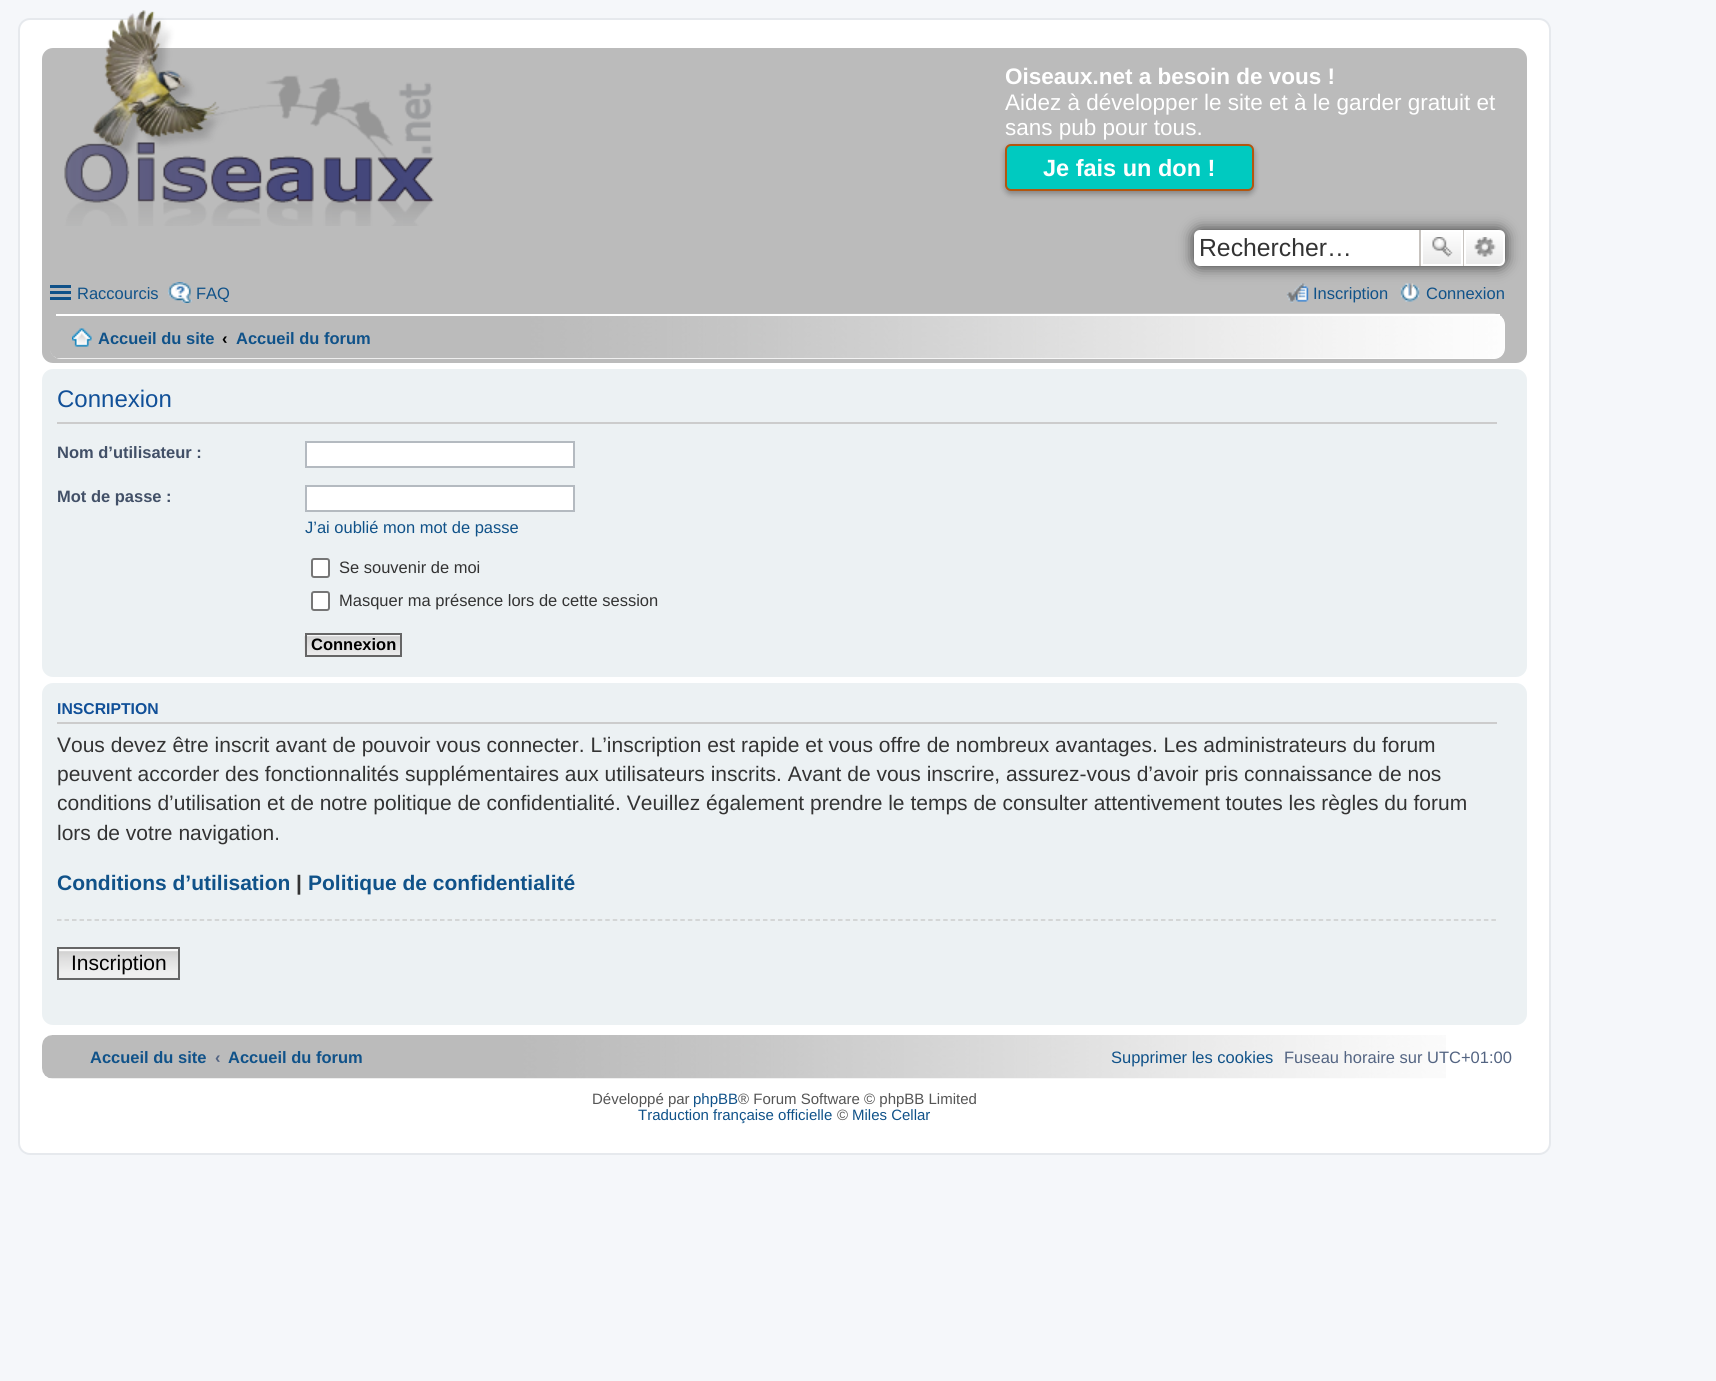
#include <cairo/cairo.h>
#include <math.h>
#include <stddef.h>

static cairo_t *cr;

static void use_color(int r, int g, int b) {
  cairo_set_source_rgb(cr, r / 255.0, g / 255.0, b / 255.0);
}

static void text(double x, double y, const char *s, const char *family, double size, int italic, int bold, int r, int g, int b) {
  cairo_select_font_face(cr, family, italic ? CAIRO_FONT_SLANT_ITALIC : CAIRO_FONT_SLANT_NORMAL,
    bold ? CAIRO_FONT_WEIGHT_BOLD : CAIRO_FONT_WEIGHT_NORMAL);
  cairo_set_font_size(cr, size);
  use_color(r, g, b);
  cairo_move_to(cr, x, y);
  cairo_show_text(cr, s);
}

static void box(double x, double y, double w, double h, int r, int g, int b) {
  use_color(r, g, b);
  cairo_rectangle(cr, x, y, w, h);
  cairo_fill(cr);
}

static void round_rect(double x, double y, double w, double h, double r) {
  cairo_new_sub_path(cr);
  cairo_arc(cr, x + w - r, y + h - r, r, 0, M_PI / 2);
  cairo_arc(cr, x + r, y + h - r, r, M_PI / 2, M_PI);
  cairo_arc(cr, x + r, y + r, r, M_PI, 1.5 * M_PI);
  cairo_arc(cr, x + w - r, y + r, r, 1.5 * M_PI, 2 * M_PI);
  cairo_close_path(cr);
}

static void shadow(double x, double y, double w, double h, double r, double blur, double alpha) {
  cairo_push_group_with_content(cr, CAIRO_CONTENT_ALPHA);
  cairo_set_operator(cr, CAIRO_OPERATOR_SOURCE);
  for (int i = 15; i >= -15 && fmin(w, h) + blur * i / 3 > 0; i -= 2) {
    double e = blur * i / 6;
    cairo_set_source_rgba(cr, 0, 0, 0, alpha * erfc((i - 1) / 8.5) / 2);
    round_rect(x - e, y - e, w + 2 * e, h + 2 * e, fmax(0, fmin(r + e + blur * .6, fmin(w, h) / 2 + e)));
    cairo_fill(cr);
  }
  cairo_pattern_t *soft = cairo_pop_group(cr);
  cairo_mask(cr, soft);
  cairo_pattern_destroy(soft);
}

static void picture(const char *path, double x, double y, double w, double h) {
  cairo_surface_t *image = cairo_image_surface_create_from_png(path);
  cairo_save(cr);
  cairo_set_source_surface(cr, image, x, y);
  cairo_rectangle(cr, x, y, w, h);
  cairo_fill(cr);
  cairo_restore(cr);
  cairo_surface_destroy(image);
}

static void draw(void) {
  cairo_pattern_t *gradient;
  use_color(245, 247, 250);
  cairo_paint(cr);
  use_color(255, 255, 255);
  round_rect(19, 19, 1531, 1135, 11);
  cairo_fill_preserve(cr);
  use_color(230, 233, 237);
  cairo_stroke(cr);
  use_color(187, 187, 187);
  round_rect(42, 48, 1485, 315, 11);
  cairo_fill(cr);
  picture("img_01.png", 64, 10, 370, 216);
  use_color(0, 0, 0);
  shadow(1005, 147, 249, 47, 6, 3, 0.3);
  use_color(0, 202, 192);
  round_rect(1006, 145, 247, 45, 5);
  cairo_fill_preserve(cr);
  use_color(179, 86, 16);
  cairo_stroke(cr);
  use_color(51, 51, 51);
  shadow(1194, 230, 311, 36, 6, 7.5, 1);
  use_color(255, 255, 255);
  cairo_new_path(cr);
  cairo_move_to(cr, 1200, 230);
  cairo_line_to(cr, 1419, 230);
  cairo_line_to(cr, 1419, 266);
  cairo_line_to(cr, 1200, 266);
  cairo_curve_to(cr, 1196.5, 266, 1194, 263.5, 1194, 260);
  cairo_line_to(cr, 1194, 236);
  cairo_curve_to(cr, 1194, 232.5, 1196.5, 230, 1200, 230);
  cairo_close_path(cr);
  cairo_fill(cr);
  gradient = cairo_pattern_create_linear(1442, 230, 1442, 266);
  cairo_pattern_add_color_stop_rgba(gradient, 0, 1, 1, 1, 1);
  cairo_pattern_add_color_stop_rgba(gradient, 1, 0.914, 0.914, 0.914, 1);
  cairo_set_source(cr, gradient);
  cairo_pattern_destroy(gradient);
  cairo_rectangle(cr, 1423, 232, 38, 32);
  cairo_fill(cr);
  cairo_rectangle(cr, 1422, 231, 40, 34);
  use_color(255, 255, 255);
  cairo_stroke(cr);
  box(1463, 230, 1, 36, 199, 195, 191);
  box(1419, 230, 2, 36, 199, 195, 191);
  picture("img_02.png", 1432, 237, 21, 20);
  gradient = cairo_pattern_create_linear(1484, 230, 1484, 266);
  cairo_pattern_add_color_stop_rgba(gradient, 0, 1, 1, 1, 1);
  cairo_pattern_add_color_stop_rgba(gradient, 1, 0.914, 0.914, 0.914, 1);
  cairo_set_source(cr, gradient);
  cairo_pattern_destroy(gradient);
  cairo_new_path(cr);
  cairo_move_to(cr, 1465, 231);
  cairo_line_to(cr, 1499, 231);
  cairo_curve_to(cr, 1502, 231, 1504, 233, 1504, 236);
  cairo_line_to(cr, 1504, 260);
  cairo_curve_to(cr, 1504, 263, 1502, 265, 1499, 265);
  cairo_line_to(cr, 1465, 265);
  cairo_close_path(cr);
  cairo_fill_preserve(cr);
  use_color(255, 255, 255);
  cairo_stroke(cr);
  picture("img_03.png", 1474, 237, 22, 20);
  box(50, 285, 21, 3, 16, 82, 137);
  box(50, 291, 21, 3, 16, 82, 137);
  box(50, 297, 21, 3, 16, 82, 137);
  picture("img_04.png", 168, 282, 24, 21);
  picture("img_05.png", 1286, 283, 23, 20);
  picture("img_06.png", 1400, 283, 20, 19);
  use_color(255, 255, 255);
  round_rect(50, 314, 1455, 45, 11);
  cairo_fill(cr);
  picture("img_07.png", 50, 313, 1454, 46);
  box(56, 314, 1444, 2, 255, 255, 255);
  picture("img_08.png", 72, 328, 20, 19);
  use_color(236, 241, 243);
  round_rect(42, 369, 1485, 308, 11);
  cairo_fill(cr);
  box(57, 422, 1440, 2, 204, 204, 204);
  use_color(255, 255, 255);
  cairo_rectangle(cr, 306, 442, 268, 25);
  cairo_fill_preserve(cr);
  use_color(180, 186, 192);
  cairo_stroke(cr);
  use_color(255, 255, 255);
  cairo_rectangle(cr, 306, 486, 268, 25);
  cairo_fill_preserve(cr);
  use_color(180, 186, 192);
  cairo_stroke(cr);
  use_color(255, 255, 255);
  round_rect(312, 559, 17, 18, 2);
  cairo_fill_preserve(cr);
  use_color(118, 118, 118);
  cairo_stroke(cr);
  use_color(255, 255, 255);
  round_rect(312, 592, 17, 18, 2);
  cairo_fill_preserve(cr);
  use_color(118, 118, 118);
  cairo_stroke(cr);
  picture("img_09.png", 304, 634, 96, 23);
  cairo_rectangle(cr, 306, 634, 95, 22);
  use_color(102, 102, 102);
  cairo_stroke(cr);
  use_color(236, 241, 243);
  round_rect(42, 683, 1485, 342, 11);
  cairo_fill(cr);
  box(57, 722, 1440, 2, 204, 204, 204);
  cairo_new_path(cr);
  cairo_move_to(cr, 57, 920);
  cairo_line_to(cr, 1497, 920);
  cairo_set_line_width(cr, 1.5);
  cairo_set_dash(cr, (double[]){4.5, 3.01}, 2, 0);
  cairo_stroke(cr);
  picture("img_10.png", 59, 951, 119, 27);
  box(59, 949, 119, 2, 250, 250, 250);
  cairo_rectangle(cr, 58, 948, 121, 31);
  use_color(102, 102, 102);
  cairo_set_line_width(cr, 2);
  cairo_set_dash(cr, NULL, 0, 0);
  cairo_stroke(cr);
  picture("img_11.png", 42, 1035, 1404, 44);
  text(1005, 84, "Oiseaux.net a besoin de vous !", "Liberation Sans", 22.5, 0, 1, 255, 255, 255);
  text(1005, 110, "Aidez à développer le site et à le garder gratuit et", "Liberation Sans", 22.5, 0, 0, 255, 255, 255);
  text(1005, 135, "sans pub pour tous.", "Liberation Sans", 22.5, 0, 0, 255, 255, 255);
  text(1043, 176, "Je fais un don !", "Liberation Sans", 23.5, 0, 1, 255, 255, 255);
  text(1199, 256, "Rechercher…", "Liberation Sans", 24.75, 0, 0, 51, 51, 51);
  text(77, 299, "Raccourcis", "Liberation Sans", 16.5, 0, 0, 16, 82, 137);
  text(196, 299, "FAQ", "Liberation Sans", 16.5, 0, 0, 16, 82, 137);
  text(1313, 299, "Inscription", "Liberation Sans", 16.5, 0, 0, 16, 82, 137);
  text(1426, 299, "Connexion", "Liberation Sans", 16.5, 0, 0, 16, 82, 137);
  text(98, 344, "Accueil du site", "Liberation Sans", 16.5, 0, 1, 16, 82, 137);
  text(222, 344, "‹", "Liberation Sans", 16.5, 0, 1, 0, 0, 0);
  text(236, 344, "Accueil du forum", "Liberation Sans", 16.5, 0, 1, 16, 82, 137);
  text(57, 407, "Connexion", "Liberation Sans", 24, 0, 0, 17, 80, 152);
  text(57, 458, "Nom d’utilisateur :", "Liberation Sans", 16.5, 0, 1, 66, 80, 103);
  text(57, 502, "Mot de passe :", "Liberation Sans", 16.5, 0, 1, 66, 80, 103);
  text(305, 533, "J’ai oublié mon mot de passe", "Liberation Sans", 16.5, 0, 0, 16, 82, 137);
  text(339, 573, "Se souvenir de moi", "Liberation Sans", 16.5, 0, 0, 51, 51, 51);
  text(339, 606, "Masquer ma présence lors de cette session", "Liberation Sans", 16.5, 0, 0, 51, 51, 51);
  text(311, 650, "Connexion", "Liberation Sans", 16.5, 0, 1, 0, 0, 0);
  text(57, 714, "INSCRIPTION", "Liberation Sans", 15.75, 0, 1, 17, 80, 152);
  text(57, 752, "Vous devez être inscrit avant de pouvoir vous connecter. L’inscription est rapide et vous offre de nombreux avantages. Les administrateurs du forum", "Liberation Sans", 21, 0, 0, 51, 51, 51);
  text(57, 781, "peuvent accorder des fonctionnalités supplémentaires aux utilisateurs inscrits. Avant de vous inscrire, assurez-vous d’avoir pris connaissance de nos", "Liberation Sans", 21, 0, 0, 51, 51, 51);
  text(57, 810, "conditions d’utilisation et de notre politique de confidentialité. Veuillez également prendre le temps de consulter attentivement toutes les règles du forum", "Liberation Sans", 21, 0, 0, 51, 51, 51);
  text(57, 840, "lors de votre navigation.", "Liberation Sans", 21, 0, 0, 51, 51, 51);
  text(57, 890, "Conditions d’utilisation", "Liberation Sans", 21, 0, 1, 16, 82, 137);
  text(296, 890, "|", "Liberation Sans", 21, 0, 1, 51, 51, 51);
  text(308, 890, "Politique de confidentialité", "Liberation Sans", 21, 0, 1, 16, 82, 137);
  text(71, 970, "Inscription", "Liberation Sans", 21, 0, 0, 0, 0, 0);
  text(90, 1063, "Accueil du site", "Liberation Sans", 16.5, 0, 1, 16, 82, 137);
  text(215, 1063, "‹", "Liberation Sans", 16.5, 0, 1, 83, 100, 130);
  text(228, 1063, "Accueil du forum", "Liberation Sans", 16.5, 0, 1, 16, 82, 137);
  text(1111, 1063, "Supprimer les cookies", "Liberation Sans", 16.5, 0, 0, 16, 82, 137);
  text(1284, 1063, "Fuseau horaire sur UTC+01:00", "Liberation Sans", 16.5, 0, 0, 83, 100, 130);
  text(592, 1104, "Développé par", "Liberation Sans", 15, 0, 0, 85, 85, 85);
  text(693, 1104, "phpBB", "Liberation Sans", 15, 0, 0, 16, 82, 137);
  text(738, 1104, "® Forum Software © phpBB Limited", "Liberation Sans", 15, 0, 0, 85, 85, 85);
  text(638, 1120, "Traduction française officielle", "Liberation Sans", 15, 0, 0, 16, 82, 137);
  text(837, 1120, "©", "Liberation Sans", 15, 0, 0, 85, 85, 85);
  text(852, 1120, "Miles Cellar", "Liberation Sans", 15, 0, 0, 16, 82, 137);
}

int main(void) {
  cairo_surface_t *surface = cairo_image_surface_create(CAIRO_FORMAT_RGB24, 1716, 1381);
  cr = cairo_create(surface);
  cairo_font_options_t *options = cairo_font_options_create();
  cairo_font_options_set_hint_metrics(options, CAIRO_HINT_METRICS_OFF);
  cairo_font_options_set_hint_style(options, CAIRO_HINT_STYLE_NONE);
  cairo_set_font_options(cr, options);
  cairo_set_miter_limit(cr, 4);
  draw();
  cairo_surface_write_to_png(surface, "out.png");
  cairo_font_options_destroy(options);
  cairo_destroy(cr);
  cairo_surface_destroy(surface);
  return 0;
}
